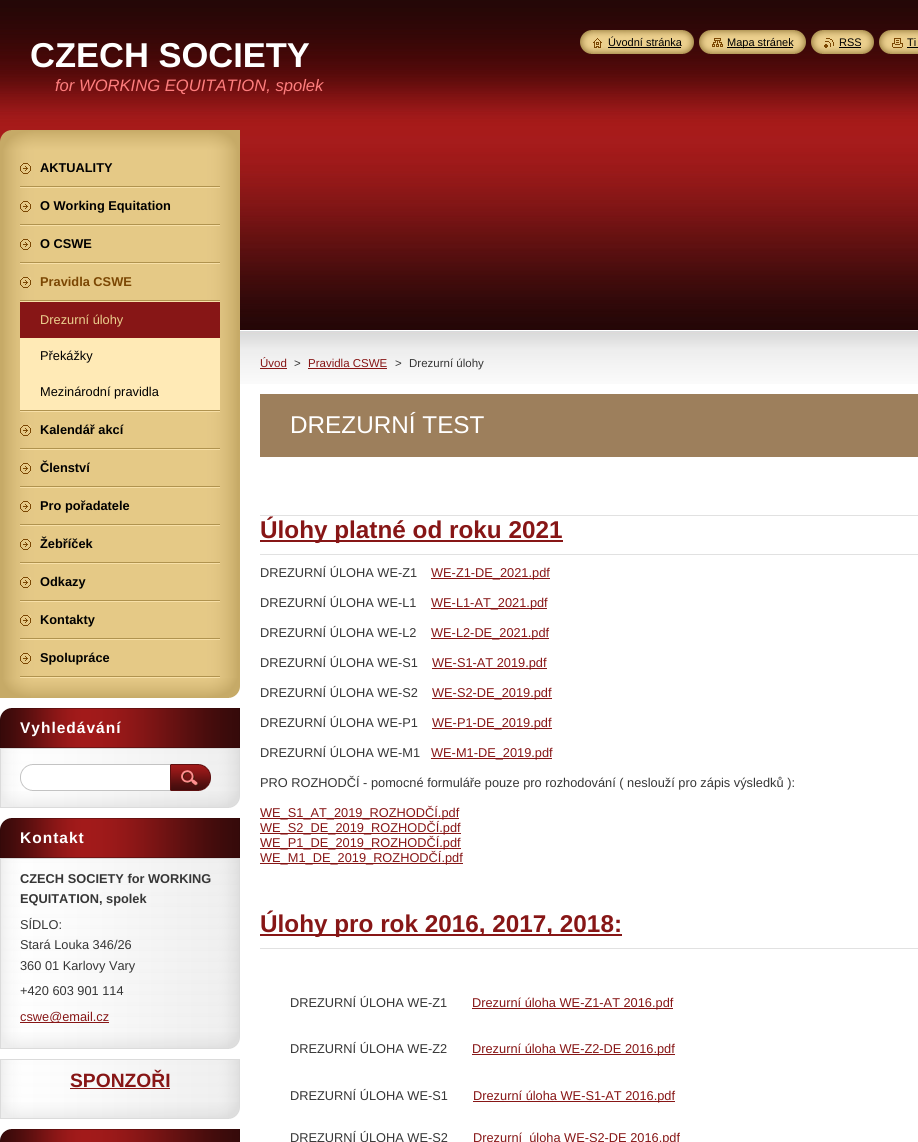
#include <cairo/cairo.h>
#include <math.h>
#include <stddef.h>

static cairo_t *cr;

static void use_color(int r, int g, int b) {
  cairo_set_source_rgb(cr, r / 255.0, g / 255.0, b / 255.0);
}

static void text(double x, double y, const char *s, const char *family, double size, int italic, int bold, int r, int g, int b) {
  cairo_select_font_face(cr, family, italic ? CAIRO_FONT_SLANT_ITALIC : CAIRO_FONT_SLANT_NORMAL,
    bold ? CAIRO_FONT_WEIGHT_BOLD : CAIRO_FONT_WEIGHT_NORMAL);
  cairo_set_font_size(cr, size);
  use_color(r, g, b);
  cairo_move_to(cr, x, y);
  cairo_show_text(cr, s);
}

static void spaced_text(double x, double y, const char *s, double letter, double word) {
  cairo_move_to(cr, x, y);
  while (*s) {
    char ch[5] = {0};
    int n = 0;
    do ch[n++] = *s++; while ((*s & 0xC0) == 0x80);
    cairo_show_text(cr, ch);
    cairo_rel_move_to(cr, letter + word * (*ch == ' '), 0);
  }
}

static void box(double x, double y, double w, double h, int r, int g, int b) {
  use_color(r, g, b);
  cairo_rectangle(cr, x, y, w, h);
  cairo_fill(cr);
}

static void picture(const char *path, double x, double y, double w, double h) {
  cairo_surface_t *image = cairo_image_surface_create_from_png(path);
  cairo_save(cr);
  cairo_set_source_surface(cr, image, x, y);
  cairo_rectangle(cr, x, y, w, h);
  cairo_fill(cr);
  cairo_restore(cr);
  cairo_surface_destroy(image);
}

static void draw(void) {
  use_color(255, 255, 255);
  cairo_paint(cr);
  picture("img_01.png", 0, 0, 918, 384);
  picture("img_02.png", 580, 30, 13, 24);
  picture("img_03.png", 593, 30, 101, 24);
  picture("img_04.png", 593, 38, 9, 10);
  box(608, 47, 73, 1, 0, 0, 0);
  picture("img_02.png", 699, 30, 13, 24);
  picture("img_05.png", 712, 30, 94, 24);
  picture("img_06.png", 712, 38, 11, 9);
  box(727, 47, 66, 1, 0, 0, 0);
  picture("img_02.png", 811, 30, 13, 24);
  picture("img_07.png", 824, 30, 50, 24);
  picture("img_08.png", 824, 38, 10, 10);
  box(839, 47, 22, 1, 0, 0, 0);
  picture("img_02.png", 879, 30, 13, 24);
  picture("img_09.png", 892, 30, 26, 24);
  picture("img_10.png", 892, 38, 11, 10);
  box(907, 47, 11, 1, 0, 0, 0);
  picture("img_11.png", 0, 130, 240, 20);
  picture("img_12.png", 0, 678, 240, 20);
  picture("img_13.png", 0, 150, 240, 528);
  picture("img_14.png", 20, 186, 200, 2);
  picture("img_15.png", 20, 163, 11, 11);
  picture("img_14.png", 20, 224, 200, 2);
  picture("img_15.png", 20, 201, 11, 11);
  picture("img_14.png", 20, 262, 200, 2);
  picture("img_15.png", 20, 239, 11, 11);
  picture("img_14.png", 20, 410, 200, 2);
  picture("img_15.png", 20, 277, 11, 11);
  picture("img_14.png", 20, 300, 200, 2);
  box(20, 302, 200, 36, 135, 22, 22);
  box(20, 338, 200, 72, 255, 234, 182);
  picture("img_14.png", 20, 448, 200, 2);
  picture("img_15.png", 20, 425, 11, 11);
  picture("img_14.png", 20, 486, 200, 2);
  picture("img_15.png", 20, 463, 11, 11);
  picture("img_14.png", 20, 524, 200, 2);
  picture("img_15.png", 20, 501, 11, 11);
  picture("img_14.png", 20, 562, 200, 2);
  picture("img_15.png", 20, 539, 11, 11);
  picture("img_14.png", 20, 600, 200, 2);
  picture("img_15.png", 20, 577, 11, 11);
  picture("img_14.png", 20, 638, 200, 2);
  picture("img_15.png", 20, 615, 11, 11);
  picture("img_14.png", 20, 676, 200, 2);
  picture("img_15.png", 20, 653, 11, 11);
  picture("img_16.png", 0, 791, 240, 17);
  picture("img_17.png", 0, 708, 240, 40);
  picture("img_18.png", 0, 749, 240, 42);
  box(0, 748, 240, 1, 219, 219, 219);
  picture("img_19.png", 20, 764, 150, 27);
  picture("img_20.png", 170, 764, 41, 27);
  picture("img_16.png", 0, 1032, 240, 17);
  picture("img_17.png", 0, 818, 240, 40);
  picture("img_21.png", 0, 859, 240, 173);
  box(0, 858, 240, 1, 219, 219, 219);
  box(20, 1022, 67, 1, 135, 22, 22);
  box(87, 1022, 22, 1, 135, 22, 22);
  picture("img_16.png", 0, 1102, 240, 17);
  picture("img_18.png", 0, 1060, 240, 42);
  box(0, 1059, 240, 1, 219, 219, 219);
  box(70, 1088, 100, 1, 135, 22, 22);
  picture("img_22.png", 0, 1129, 240, 13);
  box(260, 368, 27, 1, 135, 22, 22);
  box(308, 368, 79, 1, 135, 22, 22);
  box(260, 394, 658, 63, 157, 127, 92);
  box(260, 515, 658, 1, 225, 225, 225);
  box(260, 554, 658, 1, 225, 225, 225);
  box(260, 540, 303, 2, 135, 22, 22);
  box(431, 578, 119, 1, 135, 22, 22);
  box(431, 608, 116, 1, 135, 22, 22);
  box(431, 638, 118, 1, 135, 22, 22);
  box(432, 668, 115, 1, 135, 22, 22);
  box(432, 698, 120, 1, 135, 22, 22);
  box(432, 728, 120, 1, 135, 22, 22);
  box(431, 758, 121, 1, 135, 22, 22);
  box(260, 818, 199, 1, 135, 22, 22);
  box(260, 833, 201, 1, 135, 22, 22);
  box(260, 848, 201, 1, 135, 22, 22);
  box(260, 863, 203, 1, 135, 22, 22);
  box(260, 948, 658, 1, 225, 225, 225);
  box(260, 934, 362, 2, 135, 22, 22);
  box(472, 1008, 201, 1, 135, 22, 22);
  box(472, 1054, 203, 1, 135, 22, 22);
  box(473, 1101, 202, 1, 135, 22, 22);
  text(30, 67, "CZECH SOCIETY", "Liberation Sans", 34.5, 0, 1, 255, 255, 255);
  text(55, 91, "for WORKING EQUITATION, spolek", "Liberation Sans", 16.6, 1, 0, 255, 126, 126);
  text(608, 46, "Úvodní stránka", "Liberation Sans", 11, 0, 0, 0, 0, 0);
  text(727, 46, "Mapa stránek", "Liberation Sans", 11, 0, 0, 0, 0, 0);
  text(839, 46, "RSS", "Liberation Sans", 11, 0, 0, 0, 0, 0);
  text(907, 46, "Ti", "Liberation Sans", 11, 0, 0, 0, 0, 0);
  text(40, 172, "AKTUALITY", "Liberation Sans", 12.8, 0, 1, 0, 0, 0);
  text(40, 210, "O Working Equitation", "Liberation Sans", 12.8, 0, 1, 0, 0, 0);
  text(40, 248, "O CSWE", "Liberation Sans", 12.8, 0, 1, 0, 0, 0);
  text(40, 286, "Pravidla CSWE", "Liberation Sans", 12.8, 0, 1, 123, 71, 3);
  text(40, 324, "Drezurní úlohy", "Liberation Sans", 12.8, 0, 0, 235, 207, 141);
  text(40, 360, "Překážky", "Liberation Sans", 12.8, 0, 0, 0, 0, 0);
  text(40, 396, "Mezinárodní pravidla", "Liberation Sans", 12.8, 0, 0, 0, 0, 0);
  text(40, 434, "Kalendář akcí", "Liberation Sans", 12.8, 0, 1, 0, 0, 0);
  text(40, 472, "Členství", "Liberation Sans", 12.8, 0, 1, 0, 0, 0);
  text(40, 510, "Pro pořadatele", "Liberation Sans", 12.8, 0, 1, 0, 0, 0);
  text(40, 548, "Žebříček", "Liberation Sans", 12.8, 0, 1, 0, 0, 0);
  text(40, 586, "Odkazy", "Liberation Sans", 12.8, 0, 1, 0, 0, 0);
  text(40, 624, "Kontakty", "Liberation Sans", 12.8, 0, 1, 0, 0, 0);
  text(40, 662, "Spolupráce", "Liberation Sans", 12.8, 0, 1, 0, 0, 0);
  cairo_set_font_size(cr, 15.5);
  use_color(255, 255, 255);
  spaced_text(20, 733, "Vyhledávání", 1, 0);
  spaced_text(20, 843, "Kontakt", 1, 0);
  text(20, 883, "CZECH SOCIETY for WORKING", "Liberation Sans", 12.8, 0, 1, 54, 54, 54);
  text(20, 903, "EQUITATION, spolek", "Liberation Sans", 12.8, 0, 1, 54, 54, 54);
  text(20, 929, "SÍDLO:", "Liberation Sans", 12.8, 0, 0, 54, 54, 54);
  text(20, 949, "Stará Louka 346/26", "Liberation Sans", 12.8, 0, 0, 54, 54, 54);
  text(20, 970, "360 01 Karlovy Vary", "Liberation Sans", 12.8, 0, 0, 54, 54, 54);
  text(20, 995, "+420 603 901 114", "Liberation Sans", 12.8, 0, 0, 54, 54, 54);
  text(20, 1021, "cswe@email.cz", "Liberation Sans", 12.8, 0, 0, 135, 22, 22);
  text(70, 1087, "SPONZOŘI", "Liberation Sans", 19.25, 0, 1, 135, 22, 22);
  text(260, 367, "Úvod", "Liberation Sans", 11.5, 0, 0, 135, 22, 22);
  text(294, 367, ">", "Liberation Sans", 11.5, 0, 0, 54, 54, 54);
  text(308, 367, "Pravidla CSWE", "Liberation Sans", 11.5, 0, 0, 135, 22, 22);
  text(395, 367, ">", "Liberation Sans", 11.5, 0, 0, 54, 54, 54);
  text(409, 367, "Drezurní úlohy", "Liberation Sans", 11.5, 0, 0, 54, 54, 54);
  text(290, 433, "DREZURNÍ TEST", "Liberation Sans", 24.3, 0, 0, 255, 255, 255);
  text(260, 538, "Úlohy platné od roku 2021", "Liberation Sans", 24.3, 0, 1, 135, 22, 22);
  text(260, 577, "DREZURNÍ ÚLOHA WE-Z1", "Liberation Sans", 12.8, 0, 0, 54, 54, 54);
  text(431, 577, "WE-Z1-DE_2021.pdf", "Liberation Sans", 12.8, 0, 0, 135, 22, 22);
  text(260, 607, "DREZURNÍ ÚLOHA WE-L1", "Liberation Sans", 12.8, 0, 0, 54, 54, 54);
  text(431, 607, "WE-L1-AT_2021.pdf", "Liberation Sans", 12.8, 0, 0, 135, 22, 22);
  text(260, 637, "DREZURNÍ ÚLOHA WE-L2", "Liberation Sans", 12.8, 0, 0, 54, 54, 54);
  text(431, 637, "WE-L2-DE_2021.pdf", "Liberation Sans", 12.8, 0, 0, 135, 22, 22);
  text(260, 667, "DREZURNÍ ÚLOHA WE-S1", "Liberation Sans", 12.8, 0, 0, 54, 54, 54);
  text(432, 667, "WE-S1-AT 2019.pdf", "Liberation Sans", 12.8, 0, 0, 135, 22, 22);
  text(260, 697, "DREZURNÍ ÚLOHA WE-S2", "Liberation Sans", 12.8, 0, 0, 54, 54, 54);
  text(432, 697, "WE-S2-DE_2019.pdf", "Liberation Sans", 12.8, 0, 0, 135, 22, 22);
  text(260, 727, "DREZURNÍ ÚLOHA WE-P1", "Liberation Sans", 12.8, 0, 0, 54, 54, 54);
  text(432, 727, "WE-P1-DE_2019.pdf", "Liberation Sans", 12.8, 0, 0, 135, 22, 22);
  text(260, 757, "DREZURNÍ ÚLOHA WE-M1", "Liberation Sans", 12.8, 0, 0, 54, 54, 54);
  text(431, 757, "WE-M1-DE_2019.pdf", "Liberation Sans", 12.8, 0, 0, 135, 22, 22);
  text(260, 787, "PRO ROZHODČÍ - pomocné formuláře pouze pro rozhodování ( neslouží pro zápis výsledků ):", "Liberation Sans", 12.8, 0, 0, 54, 54, 54);
  text(260, 817, "WE_S1_AT_2019_ROZHODČÍ.pdf", "Liberation Sans", 12.8, 0, 0, 135, 22, 22);
  text(260, 832, "WE_S2_DE_2019_ROZHODČÍ.pdf", "Liberation Sans", 12.8, 0, 0, 135, 22, 22);
  text(260, 847, "WE_P1_DE_2019_ROZHODČÍ.pdf", "Liberation Sans", 12.8, 0, 0, 135, 22, 22);
  text(260, 862, "WE_M1_DE_2019_ROZHODČÍ.pdf", "Liberation Sans", 12.8, 0, 0, 135, 22, 22);
  text(260, 932, "Úlohy pro rok 2016, 2017, 2018:", "Liberation Sans", 24.3, 0, 1, 135, 22, 22);
  text(290, 1007, "DREZURNÍ ÚLOHA WE-Z1", "Liberation Sans", 12.8, 0, 0, 54, 54, 54);
  text(472, 1007, "Drezurní úloha WE-Z1-AT 2016.pdf", "Liberation Sans", 12.8, 0, 0, 135, 22, 22);
  text(290, 1053, "DREZURNÍ ÚLOHA WE-Z2", "Liberation Sans", 12.8, 0, 0, 54, 54, 54);
  text(472, 1053, "Drezurní úloha WE-Z2-DE 2016.pdf", "Liberation Sans", 12.8, 0, 0, 135, 22, 22);
  text(290, 1100, "DREZURNÍ ÚLOHA WE-S1", "Liberation Sans", 12.8, 0, 0, 54, 54, 54);
  text(473, 1100, "Drezurní úloha WE-S1-AT 2016.pdf", "Liberation Sans", 12.8, 0, 0, 135, 22, 22);
  text(290, 1142, "DREZURNÍ ÚLOHA WE-S2", "Liberation Sans", 12.8, 0, 0, 54, 54, 54);
  text(473, 1142, "Drezurní_úloha WE-S2-DE 2016.pdf", "Liberation Sans", 12.8, 0, 0, 135, 22, 22);
}

int main(void) {
  cairo_surface_t *surface = cairo_image_surface_create(CAIRO_FORMAT_RGB24, 918, 1142);
  cr = cairo_create(surface);
  cairo_font_options_t *options = cairo_font_options_create();
  cairo_font_options_set_hint_metrics(options, CAIRO_HINT_METRICS_OFF);
  cairo_font_options_set_hint_style(options, CAIRO_HINT_STYLE_NONE);
  cairo_set_font_options(cr, options);
  cairo_set_miter_limit(cr, 4);
  draw();
  cairo_surface_write_to_png(surface, "out.png");
  cairo_font_options_destroy(options);
  cairo_destroy(cr);
  cairo_surface_destroy(surface);
  return 0;
}
